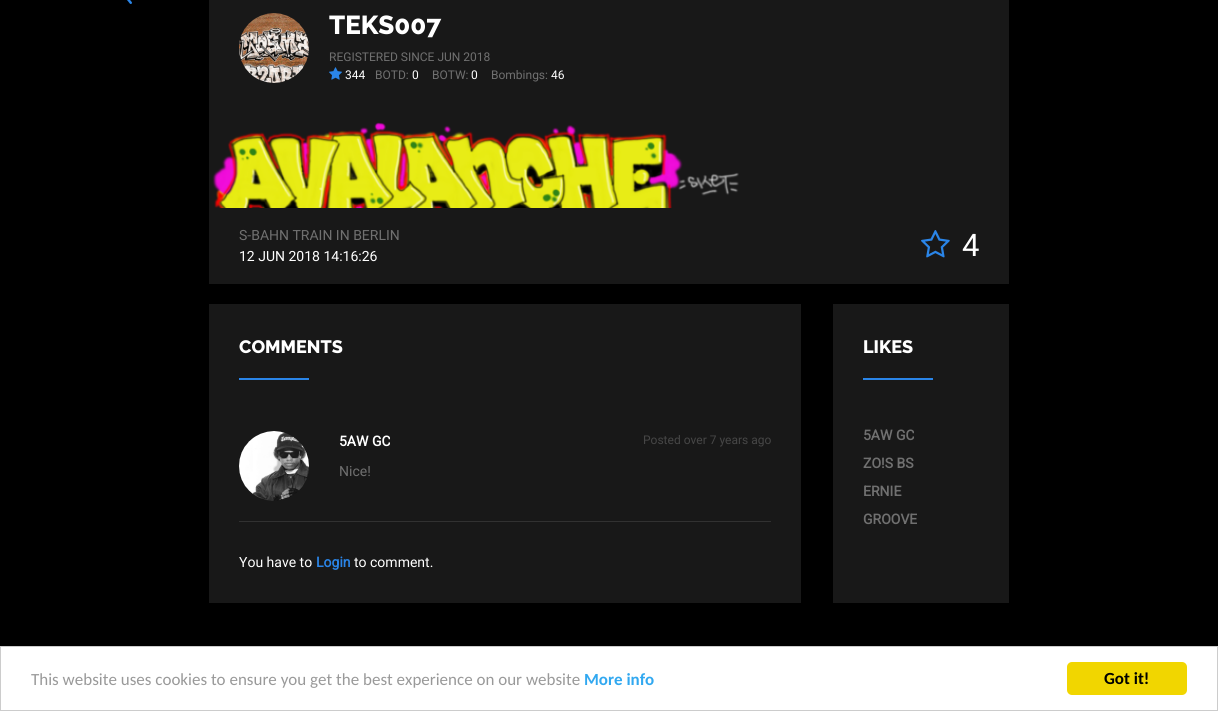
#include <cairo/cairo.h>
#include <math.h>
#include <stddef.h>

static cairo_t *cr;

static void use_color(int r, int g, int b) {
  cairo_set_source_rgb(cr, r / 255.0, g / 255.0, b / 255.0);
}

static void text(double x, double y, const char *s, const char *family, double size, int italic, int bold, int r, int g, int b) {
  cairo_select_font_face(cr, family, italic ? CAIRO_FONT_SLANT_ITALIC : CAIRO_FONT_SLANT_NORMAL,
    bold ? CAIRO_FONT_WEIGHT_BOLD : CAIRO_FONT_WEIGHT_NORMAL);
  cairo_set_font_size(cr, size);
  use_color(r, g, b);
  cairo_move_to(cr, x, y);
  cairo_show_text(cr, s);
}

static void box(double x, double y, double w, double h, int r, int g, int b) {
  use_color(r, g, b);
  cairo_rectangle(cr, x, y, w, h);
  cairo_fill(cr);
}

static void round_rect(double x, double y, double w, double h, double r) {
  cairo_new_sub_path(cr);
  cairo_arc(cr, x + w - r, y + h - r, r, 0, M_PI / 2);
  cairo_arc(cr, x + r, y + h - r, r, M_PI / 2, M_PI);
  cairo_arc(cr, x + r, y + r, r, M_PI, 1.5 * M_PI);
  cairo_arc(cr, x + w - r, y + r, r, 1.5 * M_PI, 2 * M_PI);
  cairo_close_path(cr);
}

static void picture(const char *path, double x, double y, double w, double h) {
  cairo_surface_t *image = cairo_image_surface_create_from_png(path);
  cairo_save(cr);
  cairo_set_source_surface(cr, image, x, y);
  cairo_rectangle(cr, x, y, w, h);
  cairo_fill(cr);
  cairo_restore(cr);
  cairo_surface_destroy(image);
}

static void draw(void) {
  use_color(0, 0, 0);
  cairo_paint(cr);
  picture("img_01.png", 127, 0, 5, 4);
  box(209, 0, 800, 284, 24, 24, 24);
  picture("img_02.png", 239, 13, 70, 70);
  picture("img_03.png", 329, 67, 13, 13);
  picture("img_04.png", 212, 122, 527, 86);
  picture("img_05.png", 921, 230, 29, 28);
  box(209, 304, 592, 299, 24, 24, 24);
  box(239, 378, 70, 2, 42, 133, 232);
  box(239, 521, 532, 1, 49, 49, 49);
  picture("img_06.png", 239, 431, 70, 70);
  box(833, 304, 176, 299, 24, 24, 24);
  box(863, 378, 70, 2, 42, 133, 232);
  use_color(255, 255, 255);
  cairo_rectangle(cr, 0.5, 646.5, 1217, 64);
  cairo_fill_preserve(cr);
  use_color(204, 204, 204);
  cairo_set_line_width(cr, 1);
  cairo_stroke(cr);
  use_color(241, 214, 0);
  round_rect(1067, 662, 120, 33, 5);
  cairo_fill(cr);
  text(329, 34, "TEKS007", "Raleway ExtraBold", 26, 0, 0, 255, 255, 255);
  text(329, 61, "REGISTERED SINCE JUN 2018", "Roboto", 12, 0, 0, 112, 112, 112);
  text(345, 79, "344", "Roboto", 12, 0, 0, 255, 255, 255);
  text(375, 79, "BOTD:", "Roboto", 12, 0, 0, 112, 112, 112);
  text(412, 79, "0", "Roboto", 12, 0, 0, 255, 255, 255);
  text(432, 79, "BOTW:", "Roboto", 12, 0, 0, 112, 112, 112);
  text(471, 79, "0", "Roboto", 12, 0, 0, 255, 255, 255);
  text(491, 79, "Bombings:", "Roboto", 12, 0, 0, 112, 112, 112);
  text(551, 79, "46", "Roboto", 12, 0, 0, 255, 255, 255);
  text(239, 240, "S-BAHN TRAIN IN BERLIN", "Roboto", 14, 0, 0, 112, 112, 112);
  text(239, 261, "12 JUN 2018 14:16:26", "Roboto", 14, 0, 0, 255, 255, 255);
  text(962, 256, "4", "Roboto", 31, 0, 0, 255, 255, 255);
  text(239, 353, "COMMENTS", "Raleway ExtraBold", 18, 0, 0, 255, 255, 255);
  text(339, 446, "5AW GC", "Roboto", 14, 0, 1, 255, 255, 255);
  text(643, 444, "Posted over 7 years ago", "Roboto", 12, 0, 0, 70, 70, 70);
  text(339, 476, "Nice!", "Roboto", 14, 0, 0, 112, 112, 112);
  text(239, 567, "You have to", "Roboto", 14, 0, 0, 255, 255, 255);
  text(316, 567, "Login", "Roboto", 14, 0, 1, 42, 133, 232);
  text(354, 567, "to comment.", "Roboto", 14, 0, 0, 255, 255, 255);
  text(863, 353, "LIKES", "Raleway ExtraBold", 18, 0, 0, 255, 255, 255);
  text(863, 440, "5AW GC", "Roboto", 14, 0, 1, 112, 112, 112);
  text(863, 468, "ZO!S BS", "Roboto", 14, 0, 1, 112, 112, 112);
  text(863, 496, "ERNIE", "Roboto", 14, 0, 1, 112, 112, 112);
  text(863, 524, "GROOVE", "Roboto", 14, 0, 1, 112, 112, 112);
  text(31, 685, "This website uses cookies to ensure you get the best experience on our website", "Carlito", 17, 0, 0, 153, 153, 153);
  text(584, 685, "More info", "Carlito", 17, 0, 1, 49, 168, 240);
  text(1104, 684, "Got it!", "Carlito", 17, 0, 1, 0, 0, 0);
}

int main(void) {
  cairo_surface_t *surface = cairo_image_surface_create(CAIRO_FORMAT_RGB24, 1218, 711);
  cr = cairo_create(surface);
  cairo_font_options_t *options = cairo_font_options_create();
  cairo_font_options_set_hint_metrics(options, CAIRO_HINT_METRICS_OFF);
  cairo_font_options_set_hint_style(options, CAIRO_HINT_STYLE_NONE);
  cairo_set_font_options(cr, options);
  cairo_set_miter_limit(cr, 4);
  draw();
  cairo_surface_write_to_png(surface, "out.png");
  cairo_font_options_destroy(options);
  cairo_destroy(cr);
  cairo_surface_destroy(surface);
  return 0;
}
